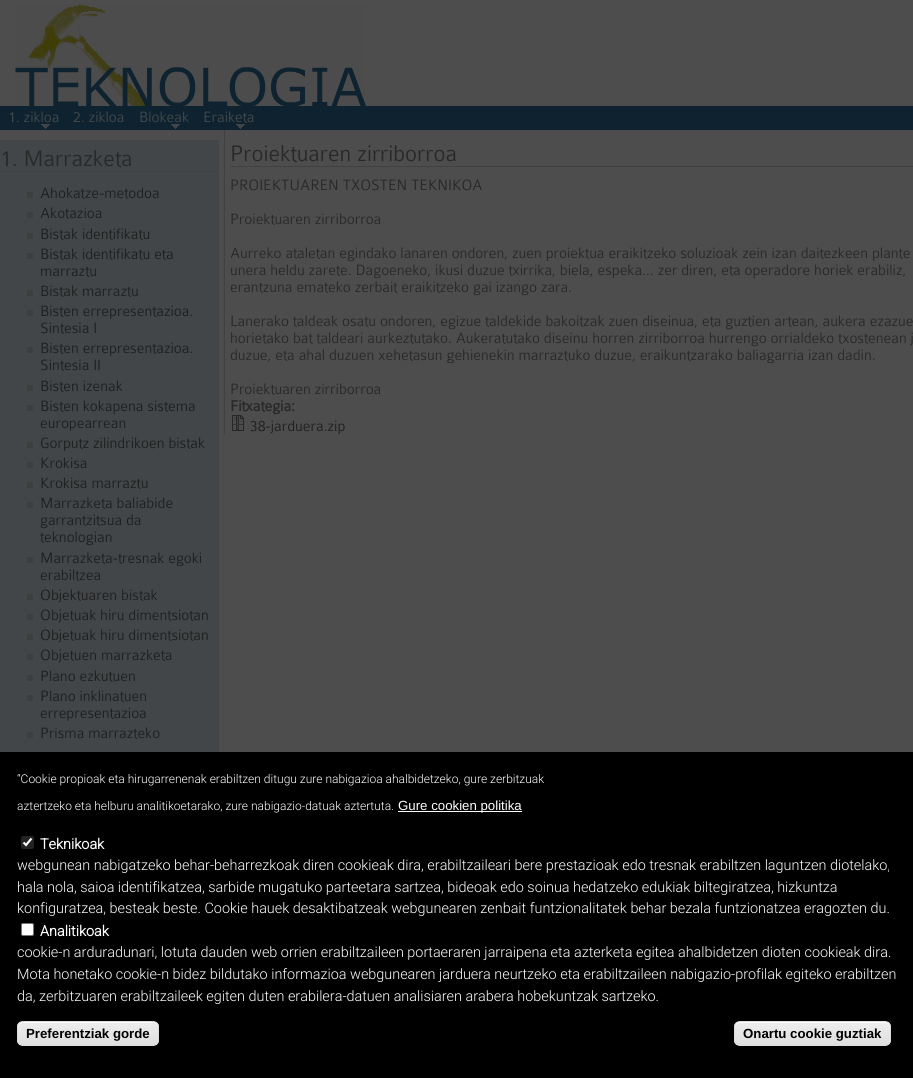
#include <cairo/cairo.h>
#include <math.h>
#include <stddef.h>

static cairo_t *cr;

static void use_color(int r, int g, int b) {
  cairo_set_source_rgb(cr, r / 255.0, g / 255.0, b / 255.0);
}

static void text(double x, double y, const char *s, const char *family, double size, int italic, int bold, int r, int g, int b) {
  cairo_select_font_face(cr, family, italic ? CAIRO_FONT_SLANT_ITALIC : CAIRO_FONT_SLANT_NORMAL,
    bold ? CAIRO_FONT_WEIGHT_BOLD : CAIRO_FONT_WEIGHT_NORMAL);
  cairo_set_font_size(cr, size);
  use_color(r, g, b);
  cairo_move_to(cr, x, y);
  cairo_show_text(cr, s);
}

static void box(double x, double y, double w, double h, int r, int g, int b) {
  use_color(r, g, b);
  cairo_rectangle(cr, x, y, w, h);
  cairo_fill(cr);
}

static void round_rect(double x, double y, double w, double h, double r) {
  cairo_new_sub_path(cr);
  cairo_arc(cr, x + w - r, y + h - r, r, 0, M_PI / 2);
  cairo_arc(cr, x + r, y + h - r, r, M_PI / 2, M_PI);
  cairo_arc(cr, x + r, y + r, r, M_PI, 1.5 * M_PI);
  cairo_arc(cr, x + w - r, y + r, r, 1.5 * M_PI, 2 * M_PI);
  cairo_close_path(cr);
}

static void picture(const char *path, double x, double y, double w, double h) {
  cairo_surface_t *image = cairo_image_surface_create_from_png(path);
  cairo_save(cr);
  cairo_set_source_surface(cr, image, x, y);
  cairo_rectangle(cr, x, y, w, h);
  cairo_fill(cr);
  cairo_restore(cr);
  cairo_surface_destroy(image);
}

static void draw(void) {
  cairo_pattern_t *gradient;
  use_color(77, 77, 77);
  cairo_paint(cr);
  picture("img_01.png", 15, 4, 351, 102);
  box(0, 106, 913, 24, 14, 35, 47);
  picture("img_02.png", 41, 124, 9, 5);
  picture("img_02.png", 171, 124, 9, 5);
  picture("img_02.png", 236, 124, 9, 5);
  box(0, 140, 219, 612, 66, 70, 72);
  box(0, 171, 219, 1, 65, 65, 65);
  box(27, 192, 6, 6, 62, 62, 62);
  box(27, 212, 6, 6, 62, 62, 62);
  box(27, 233, 6, 6, 62, 62, 62);
  box(27, 253, 6, 6, 62, 62, 62);
  box(27, 290, 6, 6, 62, 62, 62);
  box(27, 310, 6, 6, 62, 62, 62);
  box(27, 347, 6, 6, 62, 62, 62);
  box(27, 385, 6, 6, 62, 62, 62);
  box(27, 405, 6, 6, 62, 62, 62);
  box(27, 442, 6, 6, 62, 62, 62);
  box(27, 462, 6, 6, 62, 62, 62);
  box(27, 482, 6, 6, 62, 62, 62);
  box(27, 502, 6, 6, 62, 62, 62);
  box(27, 557, 6, 6, 62, 62, 62);
  box(27, 594, 6, 6, 62, 62, 62);
  box(27, 614, 6, 6, 62, 62, 62);
  box(27, 634, 6, 6, 62, 62, 62);
  box(27, 654, 6, 6, 62, 62, 62);
  box(27, 675, 6, 6, 62, 62, 62);
  box(27, 695, 6, 6, 62, 62, 62);
  box(27, 732, 6, 6, 62, 62, 62);
  box(224, 130, 1, 305, 65, 65, 65);
  box(230, 166, 683, 1, 65, 65, 65);
  picture("img_03.png", 232, 415, 12, 16);
  box(0, 752, 913, 326, 0, 0, 0);
  box(398, 811, 124, 1, 255, 255, 255);
  use_color(35, 35, 35);
  round_rect(21, 836, 13, 13, 2);
  cairo_fill(cr);
  cairo_new_path(cr);
  cairo_move_to(cr, 23.5, 842.5);
  cairo_line_to(cr, 26, 845);
  cairo_line_to(cr, 31.5, 838.5);
  use_color(255, 255, 255);
  cairo_set_line_width(cr, 2.1);
  cairo_stroke(cr);
  round_rect(21.5, 923.5, 12, 12, 1.5);
  cairo_fill_preserve(cr);
  use_color(118, 118, 118);
  cairo_set_line_width(cr, 1);
  cairo_stroke(cr);
  cairo_save(cr);
  round_rect(17, 1021, 142, 25, 6);
  cairo_clip(cr);
  gradient = cairo_pattern_create_linear(88, 1022, 88, 1045);
  cairo_pattern_add_color_stop_rgba(gradient, 0.05, 0.929, 0.929, 0.929, 1);
  cairo_pattern_add_color_stop_rgba(gradient, 1, 0.875, 0.875, 0.875, 1);
  cairo_set_source(cr, gradient);
  cairo_pattern_destroy(gradient);
  cairo_rectangle(cr, 17, 1022, 142, 23);
  cairo_fill(cr);
  cairo_restore(cr);
  use_color(255, 255, 255);
  cairo_new_path(cr);
  cairo_move_to(cr, 23, 1023);
  cairo_line_to(cr, 153, 1023);
  cairo_curve_to(cr, 156, 1023, 158, 1025, 158, 1028);
  cairo_line_to(cr, 158, 1027);
  cairo_curve_to(cr, 158, 1024, 156, 1022, 153, 1022);
  cairo_line_to(cr, 23, 1022);
  cairo_curve_to(cr, 20, 1022, 18, 1024, 18, 1027);
  cairo_line_to(cr, 18, 1028);
  cairo_curve_to(cr, 18, 1025, 20, 1023, 23, 1023);
  cairo_close_path(cr);
  cairo_fill(cr);
  round_rect(17.5, 1021.5, 141, 24, 5.5);
  use_color(220, 220, 220);
  cairo_stroke(cr);
  cairo_save(cr);
  round_rect(734, 1021, 157, 25, 6);
  cairo_clip(cr);
  gradient = cairo_pattern_create_linear(813, 1022, 813, 1045);
  cairo_pattern_add_color_stop_rgba(gradient, 0.05, 0.929, 0.929, 0.929, 1);
  cairo_pattern_add_color_stop_rgba(gradient, 1, 0.875, 0.875, 0.875, 1);
  cairo_set_source(cr, gradient);
  cairo_pattern_destroy(gradient);
  cairo_rectangle(cr, 734, 1022, 157, 23);
  cairo_fill(cr);
  cairo_restore(cr);
  use_color(255, 255, 255);
  cairo_new_path(cr);
  cairo_move_to(cr, 740, 1023);
  cairo_line_to(cr, 885, 1023);
  cairo_curve_to(cr, 888, 1023, 890, 1025, 890, 1028);
  cairo_line_to(cr, 890, 1027);
  cairo_curve_to(cr, 890, 1024, 888, 1022, 885, 1022);
  cairo_line_to(cr, 740, 1022);
  cairo_curve_to(cr, 737, 1022, 735, 1024, 735, 1027);
  cairo_line_to(cr, 735, 1028);
  cairo_curve_to(cr, 735, 1025, 737, 1023, 740, 1023);
  cairo_close_path(cr);
  cairo_fill(cr);
  round_rect(734.5, 1021.5, 156, 24, 5.5);
  use_color(220, 220, 220);
  cairo_stroke(cr);
  text(8, 122, "1. zikloa", "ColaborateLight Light", 16, 0, 0, 67, 72, 74);
  text(73, 122, "2. zikloa", "ColaborateLight Light", 16, 0, 0, 67, 72, 74);
  text(139, 122, "Blokeak", "ColaborateLight Light", 16, 0, 0, 67, 72, 74);
  text(203, 122, "Eraiketa", "ColaborateLight Light", 16, 0, 0, 67, 72, 74);
  text(0, 166, "1. Marrazketa", "ColaborateLight Light", 24, 0, 0, 40, 40, 40);
  text(40, 198, "Ahokatze-metodoa", "ColaborateLight Light", 16, 0, 0, 30, 30, 30);
  text(40, 218, "Akotazioa", "ColaborateLight Light", 16, 0, 0, 30, 30, 30);
  text(40, 239, "Bistak identifikatu", "ColaborateLight Light", 16, 0, 0, 30, 30, 30);
  text(40, 259, "Bistak identifikatu eta", "ColaborateLight Light", 16, 0, 0, 30, 30, 30);
  text(40, 276, "marraztu", "ColaborateLight Light", 16, 0, 0, 30, 30, 30);
  text(40, 296, "Bistak marraztu", "ColaborateLight Light", 16, 0, 0, 30, 30, 30);
  text(40, 316, "Bisten errepresentazioa.", "ColaborateLight Light", 16, 0, 0, 30, 30, 30);
  text(40, 333, "Sintesia I", "ColaborateLight Light", 16, 0, 0, 30, 30, 30);
  text(40, 353, "Bisten errepresentazioa.", "ColaborateLight Light", 16, 0, 0, 30, 30, 30);
  text(40, 370, "Sintesia II", "ColaborateLight Light", 16, 0, 0, 30, 30, 30);
  text(40, 391, "Bisten izenak", "ColaborateLight Light", 16, 0, 0, 30, 30, 30);
  text(40, 411, "Bisten kokapena sistema", "ColaborateLight Light", 16, 0, 0, 30, 30, 30);
  text(40, 428, "europearrean", "ColaborateLight Light", 16, 0, 0, 30, 30, 30);
  text(40, 448, "Gorputz zilindrikoen bistak", "ColaborateLight Light", 16, 0, 0, 30, 30, 30);
  text(40, 468, "Krokisa", "ColaborateLight Light", 16, 0, 0, 30, 30, 30);
  text(40, 488, "Krokisa marraztu", "ColaborateLight Light", 16, 0, 0, 30, 30, 30);
  text(40, 508, "Marrazketa baliabide", "ColaborateLight Light", 16, 0, 0, 30, 30, 30);
  text(40, 525, "garrantzitsua da", "ColaborateLight Light", 16, 0, 0, 30, 30, 30);
  text(40, 542, "teknologian", "ColaborateLight Light", 16, 0, 0, 30, 30, 30);
  text(40, 563, "Marrazketa-tresnak egoki", "ColaborateLight Light", 16, 0, 0, 30, 30, 30);
  text(40, 580, "erabiltzea", "ColaborateLight Light", 16, 0, 0, 30, 30, 30);
  text(40, 600, "Objektuaren bistak", "ColaborateLight Light", 16, 0, 0, 30, 30, 30);
  text(40, 620, "Objetuak hiru dimentsiotan", "ColaborateLight Light", 16, 0, 0, 30, 30, 30);
  text(40, 640, "Objetuak hiru dimentsiotan", "ColaborateLight Light", 16, 0, 0, 30, 30, 30);
  text(40, 660, "Objetuen marrazketa", "ColaborateLight Light", 16, 0, 0, 30, 30, 30);
  text(40, 681, "Plano ezkutuen", "ColaborateLight Light", 16, 0, 0, 30, 30, 30);
  text(40, 701, "Plano inklinatuen", "ColaborateLight Light", 16, 0, 0, 30, 30, 30);
  text(40, 718, "errepresentazioa", "ColaborateLight Light", 16, 0, 0, 30, 30, 30);
  text(40, 738, "Prisma marrazteko", "ColaborateLight Light", 16, 0, 0, 30, 30, 30);
  text(230, 161, "Proiektuaren zirriborroa", "ColaborateLight Light", 24, 0, 0, 40, 40, 40);
  text(230, 190, "PROIEKTUAREN TXOSTEN TEKNIKOA", "ColaborateLight Light", 16, 0, 0, 40, 40, 40);
  text(230, 224, "Proiektuaren zirriborroa", "ColaborateLight Light", 16, 0, 0, 40, 40, 40);
  text(230, 258, "Aurreko ataletan egindako lanaren ondoren, zuen proiektua eraikitzeko soluzioak zein izan daitezkeen plante", "ColaborateLight Light", 16, 0, 0, 40, 40, 40);
  text(230, 275, "unera heldu zarete. Dagoeneko, ikusi duzue txirrika, biela, espeka… zer diren, eta operadore horiek erabiliz,", "ColaborateLight Light", 16, 0, 0, 40, 40, 40);
  text(230, 292, "erantzuna emateko zerbait eraikitzeko gai izango zara.", "ColaborateLight Light", 16, 0, 0, 40, 40, 40);
  text(230, 326, "Lanerako taldeak osatu ondoren, egizue taldekide bakoitzak zuen diseinua, eta guztien artean, aukera ezazue", "ColaborateLight Light", 16, 0, 0, 40, 40, 40);
  text(230, 343, "horietako bat taldeari aurkeztutako. Aukeratutako diseinu horren zirriborroa hurrengo orrialdeko txostenean j", "ColaborateLight Light", 16, 0, 0, 40, 40, 40);
  text(230, 360, "duzue, eta ahal duzuen xehetasun gehienekin marraztuko duzue, eraikuntzarako baliagarria izan dadin.", "ColaborateLight Light", 16, 0, 0, 40, 40, 40);
  text(230, 394, "Proiektuaren zirriborroa", "ColaborateLight Light", 16, 0, 0, 40, 40, 40);
  text(230, 411, "Fitxategia:", "ColaborateLight", 16, 0, 1, 40, 40, 40);
  text(250, 431, "38-jarduera.zip", "ColaborateLight Light", 16, 0, 0, 30, 30, 30);
  text(17, 783, "“Cookie propioak eta hirugarrenenak erabiltzen ditugu zure nabigazioa ahalbidetzeko, gure zerbitzuak", "Roboto Light", 12, 0, 0, 255, 255, 255);
  text(17, 810, "aztertzeko eta helburu analitikoetarako, zure nabigazio-datuak aztertuta.", "Roboto Light", 12, 0, 0, 255, 255, 255);
  text(398, 810, "Gure cookien politika", "Liberation Sans", 13.25, 0, 0, 255, 255, 255);
  text(40, 849, "Teknikoak", "Roboto", 14.4, 0, 1, 255, 255, 255);
  text(17, 870, "webgunean nabigatzeko behar-beharrezkoak diren cookieak dira, erabiltzaileari bere prestazioak edo tresnak erabiltzen laguntzen diotelako,", "Roboto Light", 14.4, 0, 0, 255, 255, 255);
  text(17, 892, "hala nola, saioa identifikatzea, sarbide mugatuko parteetara sartzea, bideoak edo soinua hedatzeko edukiak biltegiratzea, hizkuntza", "Roboto Light", 14.4, 0, 0, 255, 255, 255);
  text(17, 913, "konfiguratzea, besteak beste. Cookie hauek desaktibatzeak webgunearen zenbait funtzionalitatek behar bezala funtzionatzea eragozten du.", "Roboto Light", 14.4, 0, 0, 255, 255, 255);
  text(40, 936, "Analitikoak", "Roboto", 14.4, 0, 1, 255, 255, 255);
  text(17, 957, "cookie-n arduradunari, lotuta dauden web orrien erabiltzaileen portaeraren jarraipena eta azterketa egitea ahalbidetzen dioten cookieak dira.", "Roboto Light", 14.4, 0, 0, 255, 255, 255);
  text(17, 979, "Mota honetako cookie-n bidez bildutako informazioa webgunearen jarduera neurtzeko eta erabiltzaileen nabigazio-profilak egiteko erabiltzen", "Roboto Light", 14.4, 0, 0, 255, 255, 255);
  text(17, 1001, "da, zerbitzuaren erabiltzaileek egiten duten erabilera-datuen analisiaren arabera hobekuntzak sartzeko.", "Roboto Light", 14.4, 0, 0, 255, 255, 255);
  text(26, 1038, "Preferentziak gorde", "Liberation Sans", 13.25, 0, 1, 0, 0, 0);
  text(743, 1038, "Onartu cookie guztiak", "Liberation Sans", 13.25, 0, 1, 0, 0, 0);
}

int main(void) {
  cairo_surface_t *surface = cairo_image_surface_create(CAIRO_FORMAT_RGB24, 913, 1078);
  cr = cairo_create(surface);
  cairo_font_options_t *options = cairo_font_options_create();
  cairo_font_options_set_hint_metrics(options, CAIRO_HINT_METRICS_OFF);
  cairo_font_options_set_hint_style(options, CAIRO_HINT_STYLE_NONE);
  cairo_set_font_options(cr, options);
  cairo_set_miter_limit(cr, 4);
  draw();
  cairo_surface_write_to_png(surface, "out.png");
  cairo_font_options_destroy(options);
  cairo_destroy(cr);
  cairo_surface_destroy(surface);
  return 0;
}
